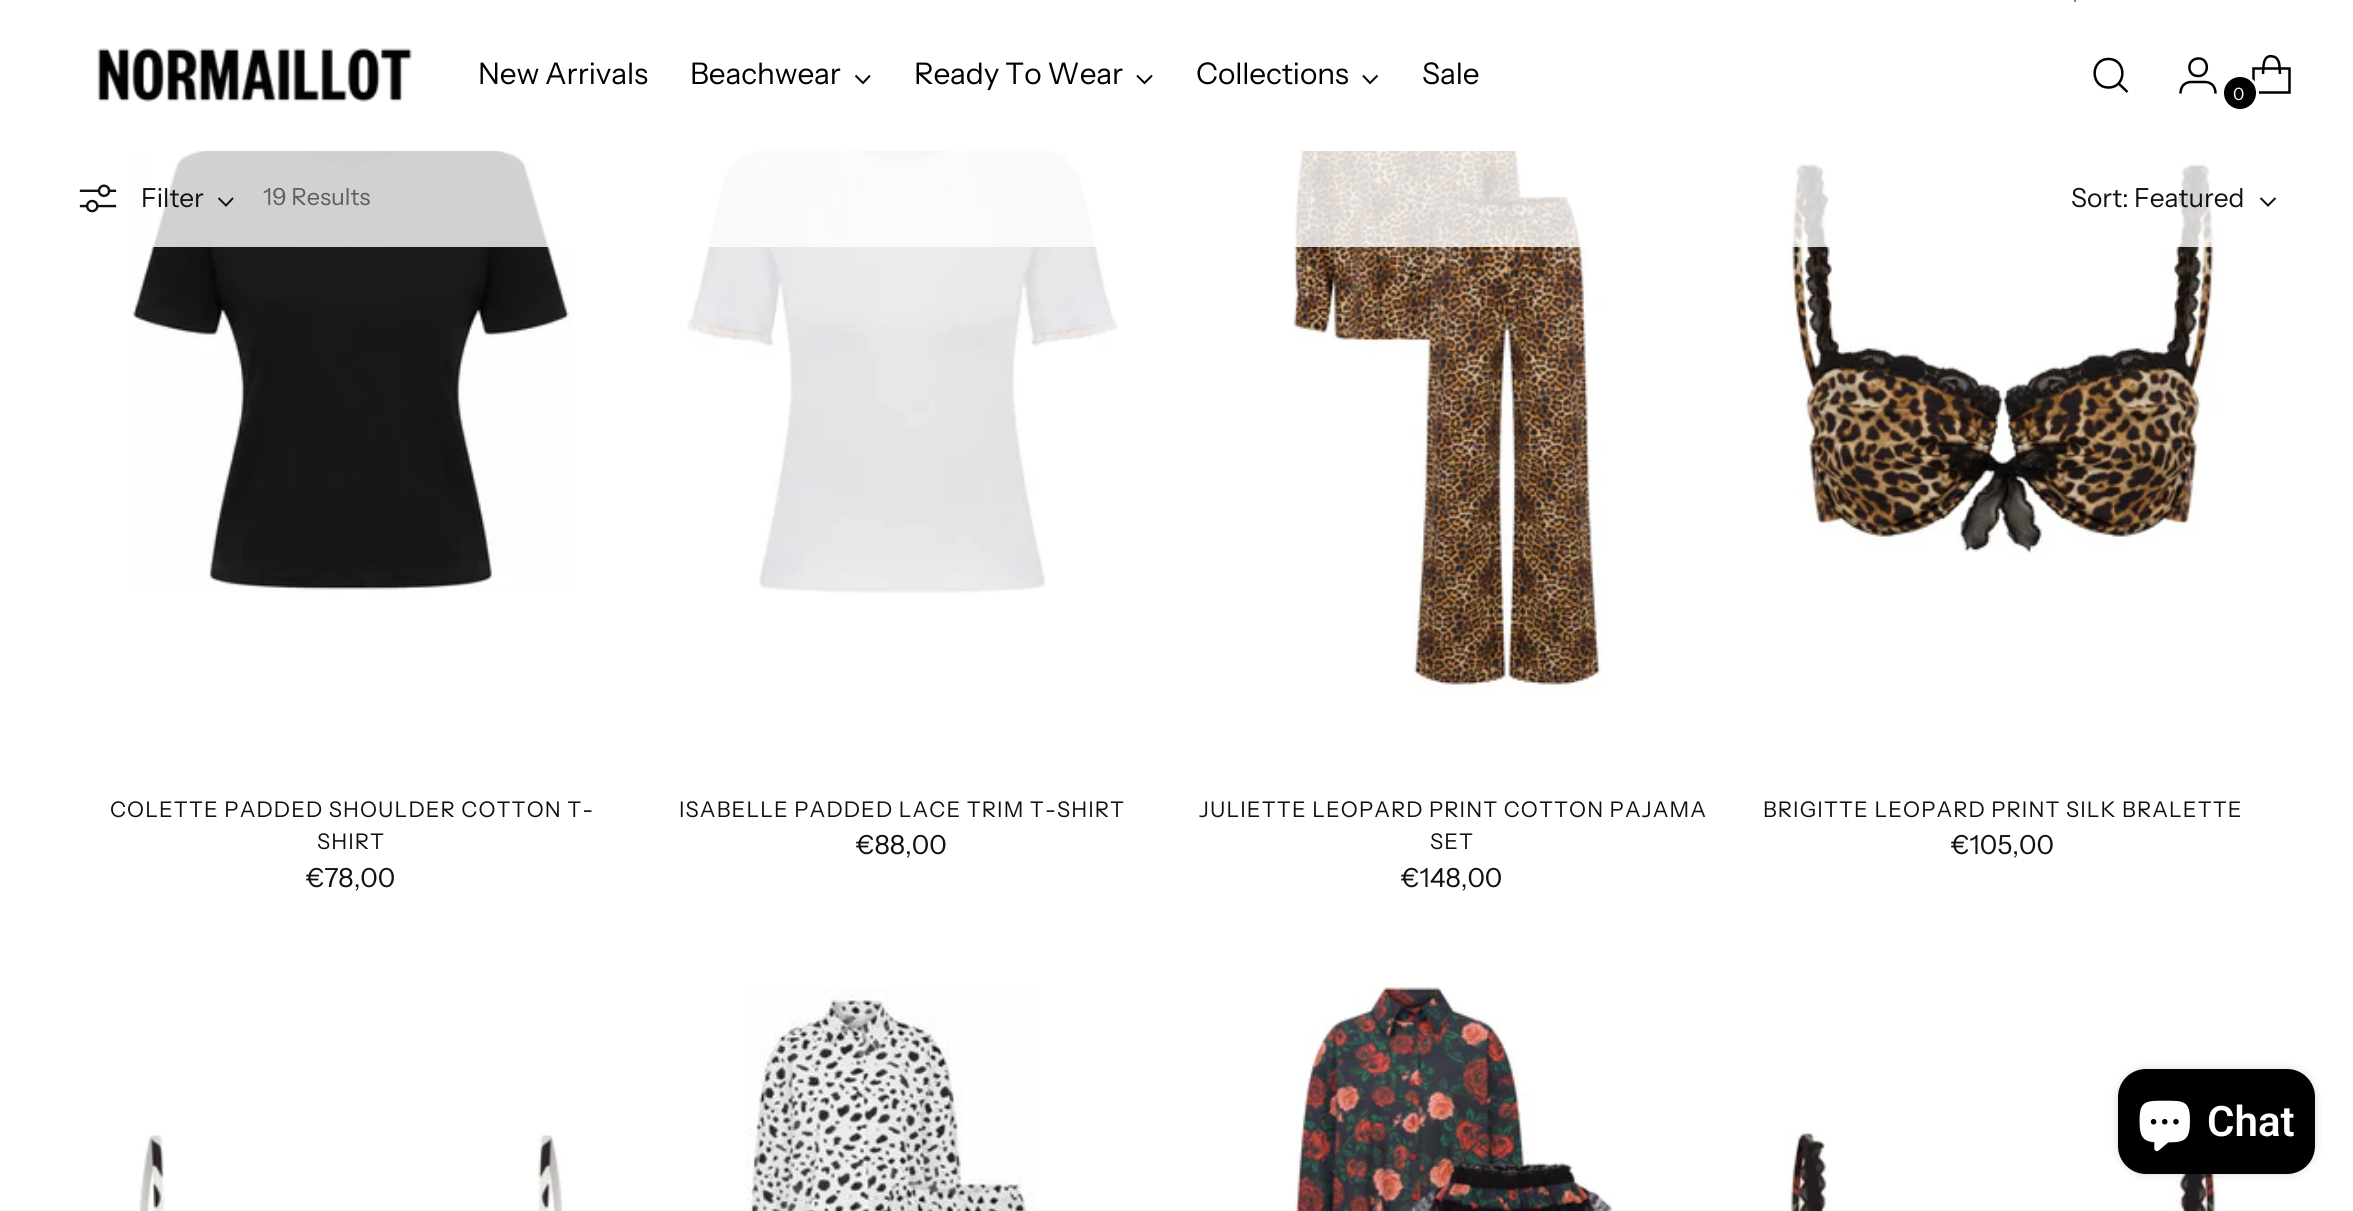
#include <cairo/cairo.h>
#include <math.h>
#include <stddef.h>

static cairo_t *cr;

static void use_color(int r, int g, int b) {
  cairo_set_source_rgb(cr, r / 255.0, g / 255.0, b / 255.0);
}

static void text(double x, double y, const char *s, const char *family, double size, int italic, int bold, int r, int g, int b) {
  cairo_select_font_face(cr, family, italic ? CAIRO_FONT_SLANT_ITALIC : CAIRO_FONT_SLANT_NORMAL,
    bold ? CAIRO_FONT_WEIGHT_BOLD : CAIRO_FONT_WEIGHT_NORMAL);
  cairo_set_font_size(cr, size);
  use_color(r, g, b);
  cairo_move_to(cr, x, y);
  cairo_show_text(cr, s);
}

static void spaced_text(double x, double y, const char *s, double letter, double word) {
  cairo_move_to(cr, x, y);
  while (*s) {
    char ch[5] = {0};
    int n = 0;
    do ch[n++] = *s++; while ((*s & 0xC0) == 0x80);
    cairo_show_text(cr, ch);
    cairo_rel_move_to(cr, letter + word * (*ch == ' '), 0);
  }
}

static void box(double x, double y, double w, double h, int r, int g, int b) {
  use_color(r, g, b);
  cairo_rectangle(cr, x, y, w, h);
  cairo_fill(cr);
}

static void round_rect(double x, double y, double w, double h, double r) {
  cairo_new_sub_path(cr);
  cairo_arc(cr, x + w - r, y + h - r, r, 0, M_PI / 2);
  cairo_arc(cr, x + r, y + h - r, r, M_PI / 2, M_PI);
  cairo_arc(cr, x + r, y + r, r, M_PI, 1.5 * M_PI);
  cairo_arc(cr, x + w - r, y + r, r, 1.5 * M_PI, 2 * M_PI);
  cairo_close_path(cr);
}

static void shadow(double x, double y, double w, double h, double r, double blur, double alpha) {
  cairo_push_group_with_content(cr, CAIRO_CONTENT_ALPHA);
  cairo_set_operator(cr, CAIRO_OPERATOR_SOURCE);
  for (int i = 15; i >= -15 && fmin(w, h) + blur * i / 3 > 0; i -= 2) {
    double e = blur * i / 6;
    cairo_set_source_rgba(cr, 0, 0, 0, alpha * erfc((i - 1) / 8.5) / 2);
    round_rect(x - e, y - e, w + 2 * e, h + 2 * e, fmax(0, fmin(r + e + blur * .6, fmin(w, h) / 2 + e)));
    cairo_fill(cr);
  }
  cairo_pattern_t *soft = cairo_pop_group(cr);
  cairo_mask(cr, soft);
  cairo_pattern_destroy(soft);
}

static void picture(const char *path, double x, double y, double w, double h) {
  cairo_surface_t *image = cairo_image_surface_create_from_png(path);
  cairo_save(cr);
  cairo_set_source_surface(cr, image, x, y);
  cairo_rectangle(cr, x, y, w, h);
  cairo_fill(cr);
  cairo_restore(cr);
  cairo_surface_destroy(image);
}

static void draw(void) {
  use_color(255, 255, 255);
  cairo_paint(cr);
  box(2074, 0, 2, 2, 128, 128, 128);
  picture("img_01.png", 97, 48, 315, 54);
  cairo_new_path(cr);
  cairo_move_to(cr, 855.5, 75.5);
  cairo_line_to(cr, 863, 83);
  cairo_line_to(cr, 870, 75.5);
  use_color(0, 0, 0);
  cairo_stroke(cr);
  cairo_new_path(cr);
  cairo_move_to(cr, 1137, 75.5);
  cairo_line_to(cr, 1144.5, 83);
  cairo_line_to(cr, 1152, 75.5);
  cairo_stroke(cr);
  cairo_new_path(cr);
  cairo_move_to(cr, 1363, 75.5);
  cairo_line_to(cr, 1370, 83);
  cairo_line_to(cr, 1377.5, 75.5);
  cairo_stroke(cr);
  cairo_new_path(cr);
  cairo_move_to(cr, 2108.5, 87.5);
  cairo_curve_to(cr, 2127, 87.5, 2127, 59, 2108.5, 59);
  cairo_curve_to(cr, 2090, 59, 2090, 87.5, 2108.5, 87.5);
  cairo_close_path(cr);
  cairo_set_line_width(cr, 2.5);
  cairo_set_line_cap(cr, CAIRO_LINE_CAP_ROUND);
  cairo_stroke(cr);
  cairo_new_path(cr);
  cairo_move_to(cr, 2118.5, 83.5);
  cairo_line_to(cr, 2127.5, 92);
  cairo_set_line_cap(cr, CAIRO_LINE_CAP_BUTT);
  cairo_stroke(cr);
  cairo_new_path(cr);
  cairo_move_to(cr, 2198, 76);
  cairo_curve_to(cr, 2210, 76.5, 2209.5, 57.5, 2198, 58.5);
  cairo_curve_to(cr, 2186.5, 59, 2186.5, 76, 2198, 76);
  cairo_close_path(cr);
  cairo_move_to(cr, 2180.5, 93.5);
  cairo_curve_to(cr, 2180.5, 87, 2184, 82, 2191.5, 82);
  cairo_line_to(cr, 2204.5, 82);
  cairo_curve_to(cr, 2212, 82, 2215.5, 87, 2215.5, 93.5);
  cairo_stroke(cr);
  cairo_new_path(cr);
  cairo_move_to(cr, 2280, 74);
  cairo_curve_to(cr, 2279.5, 70, 2280, 65.5, 2278.5, 61.5);
  cairo_curve_to(cr, 2277.5, 59, 2276, 57, 2273, 56.5);
  cairo_curve_to(cr, 2262.5, 54, 2263.5, 67.5, 2263, 74);
  cairo_set_line_join(cr, CAIRO_LINE_JOIN_BEVEL);
  cairo_stroke(cr);
  cairo_new_path(cr);
  cairo_move_to(cr, 2289.5, 92.5);
  cairo_line_to(cr, 2289.5, 68.5);
  cairo_line_to(cr, 2253.5, 68.5);
  cairo_line_to(cr, 2253.5, 92.5);
  cairo_close_path(cr);
  cairo_set_line_join(cr, CAIRO_LINE_JOIN_MITER);
  cairo_stroke(cr);
  round_rect(2224.5, 76.5, 33, 34, 16.5);
  use_color(255, 255, 255);
  cairo_set_line_width(cr, 3);
  cairo_stroke(cr);
  use_color(0, 0, 0);
  cairo_arc(cr, 2240, 93, 16, 0, 2 * M_PI);
  cairo_fill(cr);
  picture("img_03.png", 129, 151, 444, 442);
  picture("img_04.png", 687, 151, 431, 442);
  picture("img_05.png", 1293, 151, 310, 539);
  picture("img_06.png", 1787, 164, 431, 390);
  cairo_set_source_rgba(cr, 1, 1, 1, 0.8);
  cairo_rectangle(cr, 150, 151, 2067, 96);
  cairo_fill(cr);
  picture("img_02.png", 79, 184, 38, 29);
  cairo_new_path(cr);
  cairo_move_to(cr, 218.5, 198);
  cairo_line_to(cr, 226, 205.5);
  cairo_line_to(cr, 233, 198);
  use_color(17, 17, 17);
  cairo_set_line_width(cr, 2);
  cairo_stroke(cr);
  cairo_new_path(cr);
  cairo_move_to(cr, 2260.5, 198);
  cairo_line_to(cr, 2268, 205.5);
  cairo_line_to(cr, 2275.5, 198);
  cairo_stroke(cr);
  picture("img_07.png", 139, 1133, 428, 78);
  picture("img_08.png", 745, 988, 292, 223);
  picture("img_09.png", 1295, 987, 321, 224);
  picture("img_10.png", 1787, 1130, 432, 81);
  use_color(0, 0, 0);
  shadow(2118, 1069, 197, 105, 28, 4.5, 0.15);
  use_color(0, 0, 0);
  round_rect(2118, 1069, 197, 105, 28);
  cairo_fill(cr);
  picture("img_11.png", 2139, 1100, 51, 52);
  cairo_select_font_face(cr, "Instrument Sans", CAIRO_FONT_SLANT_NORMAL, CAIRO_FONT_WEIGHT_NORMAL);
  cairo_set_font_size(cr, 29.75);
  spaced_text(478, 84, "New Arrivals", -0.1, 0);
  spaced_text(690, 84, "Beachwear", -0.1, 0);
  spaced_text(914, 84, "Ready To Wear", -0.1, 0);
  spaced_text(1196, 84, "Collections", -0.1, 0);
  spaced_text(1422, 84, "Sale", -0.1, 0);
  text(2233, 100, "0", "Instrument Sans", 17, 0, 0, 255, 255, 255);
  text(141, 207, "Filter", "Instrument Sans", 26.25, 0, 0, 17, 17, 17);
  text(263, 205, "19 Results", "Instrument Sans", 23.5, 0, 0, 94, 94, 94);
  text(2071, 207, "Sort: Featured", "Instrument Sans", 26.25, 0, 0, 17, 17, 17);
  cairo_set_font_size(cr, 21.6);
  spaced_text(110, 817, "COLETTE PADDED SHOULDER COTTON T-", 1.1, 0);
  spaced_text(317, 849, "SHIRT", 1.1, 0);
  text(306, 887, "€78,00", "Instrument Sans", 26.25, 0, 0, 17, 17, 17);
  cairo_set_font_size(cr, 21.6);
  spaced_text(679, 817, "ISABELLE PADDED LACE TRIM T-SHIRT", 1.1, 0);
  text(856, 854, "€88,00", "Instrument Sans", 26.25, 0, 0, 17, 17, 17);
  cairo_set_font_size(cr, 21.6);
  spaced_text(1199, 817, "JULIETTE LEOPARD PRINT COTTON PAJAMA", 1.1, 0);
  spaced_text(1430, 849, "SET", 1.1, 0);
  text(1401, 887, "€148,00", "Instrument Sans", 26.25, 0, 0, 17, 17, 17);
  cairo_set_font_size(cr, 21.6);
  spaced_text(1763, 817, "BRIGITTE LEOPARD PRINT SILK BRALETTE", 1.1, 0);
  text(1951, 854, "€105,00", "Instrument Sans", 26.25, 0, 0, 17, 17, 17);
  text(2207, 1136, "Chat", "Roboto SemiBold", 42, 0, 0, 255, 255, 255);
}

int main(void) {
  cairo_surface_t *surface = cairo_image_surface_create(CAIRO_FORMAT_RGB24, 2353, 1211);
  cr = cairo_create(surface);
  cairo_font_options_t *options = cairo_font_options_create();
  cairo_font_options_set_hint_metrics(options, CAIRO_HINT_METRICS_OFF);
  cairo_font_options_set_hint_style(options, CAIRO_HINT_STYLE_NONE);
  cairo_set_font_options(cr, options);
  cairo_set_miter_limit(cr, 4);
  draw();
  cairo_surface_write_to_png(surface, "out.png");
  cairo_font_options_destroy(options);
  cairo_destroy(cr);
  cairo_surface_destroy(surface);
  return 0;
}
